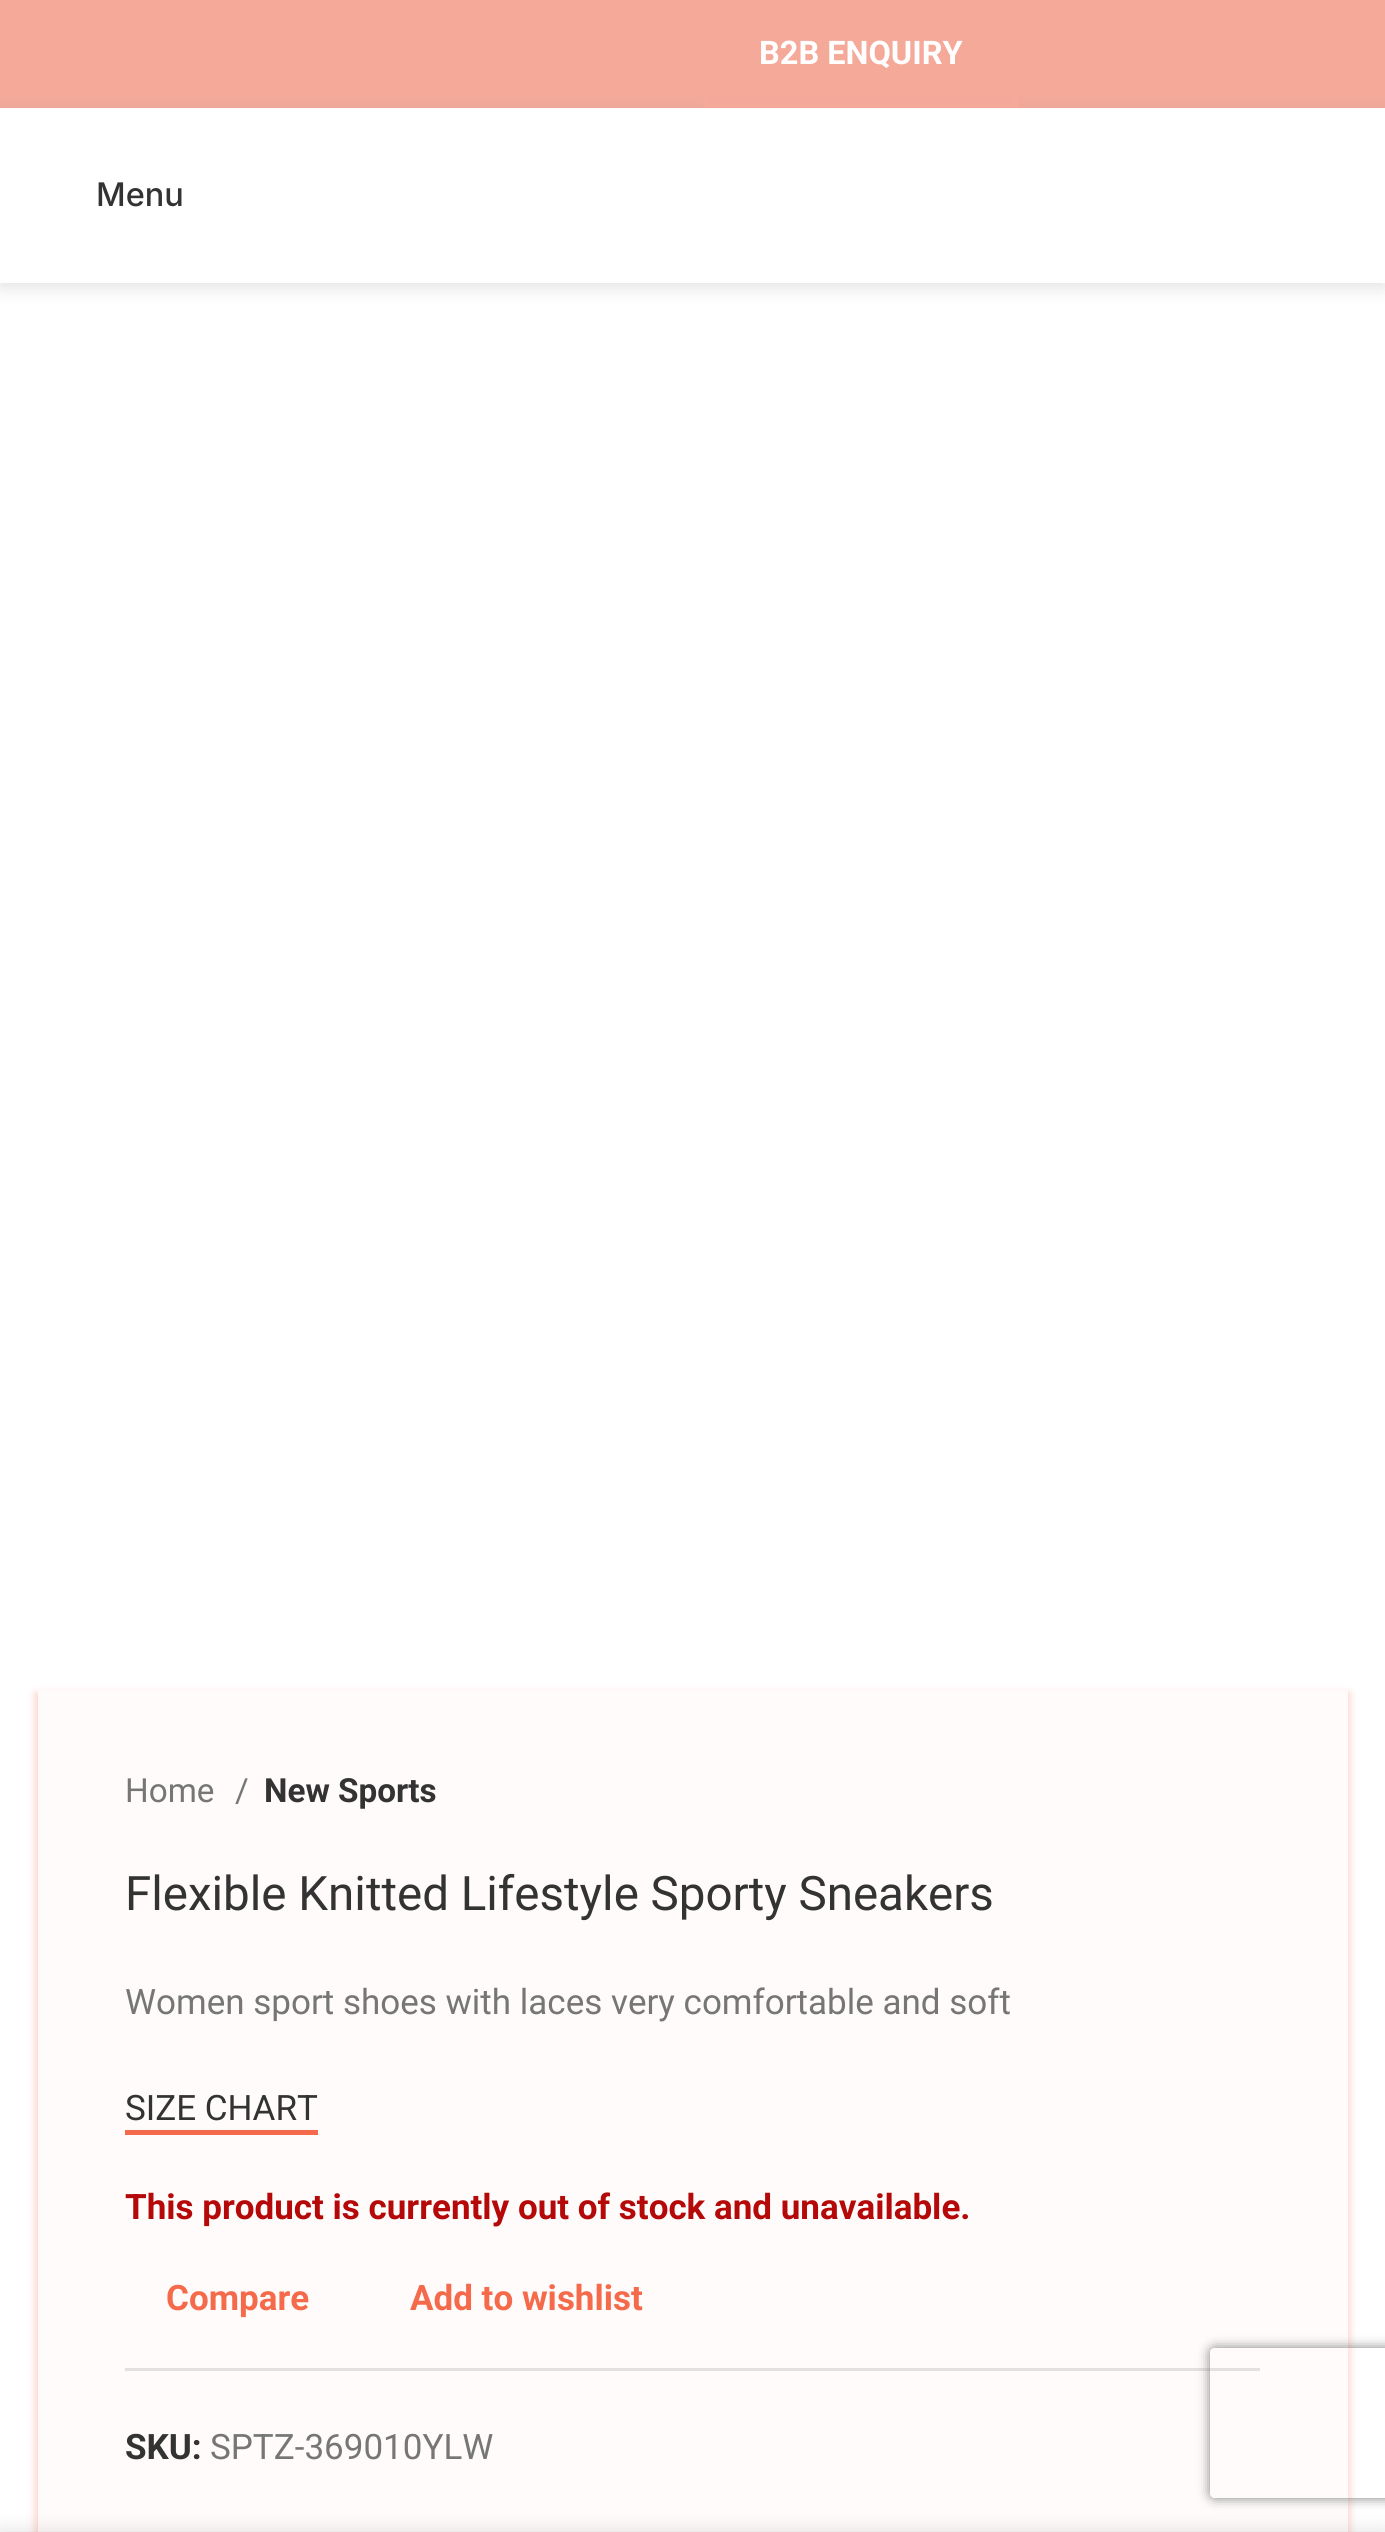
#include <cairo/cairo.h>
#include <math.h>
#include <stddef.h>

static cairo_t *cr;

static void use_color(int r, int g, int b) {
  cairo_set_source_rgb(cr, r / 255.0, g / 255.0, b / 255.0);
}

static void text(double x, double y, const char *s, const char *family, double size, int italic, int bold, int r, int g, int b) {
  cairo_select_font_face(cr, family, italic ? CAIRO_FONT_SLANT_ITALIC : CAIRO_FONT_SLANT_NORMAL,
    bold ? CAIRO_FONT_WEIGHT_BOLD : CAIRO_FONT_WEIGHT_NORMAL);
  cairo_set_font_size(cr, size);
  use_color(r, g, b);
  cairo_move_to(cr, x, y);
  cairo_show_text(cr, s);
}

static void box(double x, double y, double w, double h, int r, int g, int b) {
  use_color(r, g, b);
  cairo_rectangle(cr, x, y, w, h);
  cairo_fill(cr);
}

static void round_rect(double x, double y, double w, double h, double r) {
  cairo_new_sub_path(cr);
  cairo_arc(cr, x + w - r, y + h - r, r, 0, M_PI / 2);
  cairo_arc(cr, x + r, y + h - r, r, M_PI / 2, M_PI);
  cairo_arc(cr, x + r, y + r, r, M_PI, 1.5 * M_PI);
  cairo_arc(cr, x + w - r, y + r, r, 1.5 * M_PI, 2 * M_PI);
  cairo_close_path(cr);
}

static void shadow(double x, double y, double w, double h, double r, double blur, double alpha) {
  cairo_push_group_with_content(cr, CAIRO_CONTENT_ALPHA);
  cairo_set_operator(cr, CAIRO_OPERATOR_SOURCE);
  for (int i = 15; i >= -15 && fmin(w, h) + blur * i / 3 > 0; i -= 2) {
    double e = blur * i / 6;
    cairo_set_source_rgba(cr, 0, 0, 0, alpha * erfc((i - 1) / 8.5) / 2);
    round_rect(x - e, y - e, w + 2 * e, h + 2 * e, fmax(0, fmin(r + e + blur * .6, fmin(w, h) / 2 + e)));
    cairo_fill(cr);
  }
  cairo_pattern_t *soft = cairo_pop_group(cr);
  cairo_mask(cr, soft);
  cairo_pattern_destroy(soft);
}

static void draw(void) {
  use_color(255, 255, 255);
  cairo_paint(cr);
  box(0, 0, 1385, 108, 244, 169, 153);
  use_color(136, 135, 135);
  shadow(0, 113, 1385, 175, 0, 9, 0.24);
  cairo_rectangle(cr, 705.5, 5.5, 310, 100);
  use_color(244, 169, 153);
  cairo_set_line_width(cr, 5);
  cairo_stroke(cr);
  box(0, 108, 1385, 175, 255, 255, 255);
  cairo_save(cr);
  cairo_set_fill_rule(cr, CAIRO_FILL_RULE_EVEN_ODD);
  cairo_new_path(cr);
  cairo_move_to(cr, 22, 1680);
  cairo_line_to(cr, 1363, 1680);
  cairo_line_to(cr, 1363, 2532);
  cairo_line_to(cr, 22, 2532);
  cairo_close_path(cr);
  cairo_move_to(cr, 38, 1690);
  cairo_line_to(cr, 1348, 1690);
  cairo_line_to(cr, 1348, 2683);
  cairo_line_to(cr, 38, 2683);
  cairo_close_path(cr);
  cairo_clip(cr);
  use_color(244, 106, 75);
  shadow(35, 1693, 1315, 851, 0, 4, 0.29);
  cairo_restore(cr);
  cairo_set_source_rgba(cr, 0.992, 0.961, 0.953, 0.48);
  cairo_rectangle(cr, 38, 1690, 1310, 842);
  cairo_fill(cr);
  box(125, 2130, 193, 5, 244, 106, 75);
  box(125, 2368, 1135, 3, 227, 224, 223);
  cairo_save(cr);
  cairo_set_fill_rule(cr, CAIRO_FILL_RULE_EVEN_ODD);
  cairo_new_path(cr);
  cairo_move_to(cr, 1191, 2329);
  cairo_line_to(cr, 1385, 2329);
  cairo_line_to(cr, 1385, 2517);
  cairo_line_to(cr, 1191, 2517);
  cairo_close_path(cr);
  cairo_move_to(cr, 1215, 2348);
  cairo_line_to(cr, 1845, 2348);
  cairo_curve_to(cr, 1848, 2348, 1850, 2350, 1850, 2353);
  cairo_line_to(cr, 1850, 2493);
  cairo_curve_to(cr, 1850, 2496, 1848, 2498, 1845, 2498);
  cairo_line_to(cr, 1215, 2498);
  cairo_curve_to(cr, 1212, 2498, 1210, 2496, 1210, 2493);
  cairo_line_to(cr, 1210, 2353);
  cairo_curve_to(cr, 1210, 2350, 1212, 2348, 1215, 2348);
  cairo_close_path(cr);
  cairo_clip(cr);
  use_color(128, 128, 128);
  shadow(1210, 2348, 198, 150, 5, 6, 1);
  cairo_restore(cr);
  use_color(0, 0, 0);
  shadow(0, 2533, 1385, 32, 0, 11, 0.14);
  text(759, 64, "B2B ENQUIRY", "Roboto", 32.5, 0, 1, 255, 255, 255);
  text(96, 206, "Menu", "Inter Medium", 32.5, 0, 0, 51, 51, 51);
  text(125, 1802, "Home", "Roboto", 33.25, 0, 0, 118, 118, 118);
  text(235, 1802, "/", "Roboto", 33.25, 0, 0, 118, 118, 118);
  text(264, 1802, "New Sports", "Roboto", 33.25, 0, 1, 51, 51, 51);
  text(125, 1910, "Flexible Knitted Lifestyle Sporty Sneakers", "Roboto", 47.5, 0, 0, 51, 51, 51);
  text(125, 2014, "Women sport shoes with laces very comfortable and soft", "Roboto", 35, 0, 0, 118, 118, 118);
  text(125, 2120, "SIZE CHART", "Roboto", 35, 0, 0, 51, 51, 51);
  text(125, 2219, "This product is currently out of stock and unavailable.", "Roboto", 35, 0, 1, 181, 8, 8);
  text(166, 2310, "Compare", "Roboto", 35, 0, 1, 244, 106, 75);
  text(410, 2310, "Add to wishlist", "Roboto", 35, 0, 1, 244, 106, 75);
  text(125, 2459, "SKU:", "Roboto", 35, 0, 1, 51, 51, 51);
  text(210, 2459, "SPTZ-369010YLW", "Roboto", 35, 0, 0, 118, 118, 118);
}

int main(void) {
  cairo_surface_t *surface = cairo_image_surface_create(CAIRO_FORMAT_RGB24, 1385, 2532);
  cr = cairo_create(surface);
  cairo_font_options_t *options = cairo_font_options_create();
  cairo_font_options_set_hint_metrics(options, CAIRO_HINT_METRICS_OFF);
  cairo_font_options_set_hint_style(options, CAIRO_HINT_STYLE_NONE);
  cairo_set_font_options(cr, options);
  cairo_set_miter_limit(cr, 4);
  draw();
  cairo_surface_write_to_png(surface, "out.png");
  cairo_font_options_destroy(options);
  cairo_destroy(cr);
  cairo_surface_destroy(surface);
  return 0;
}
